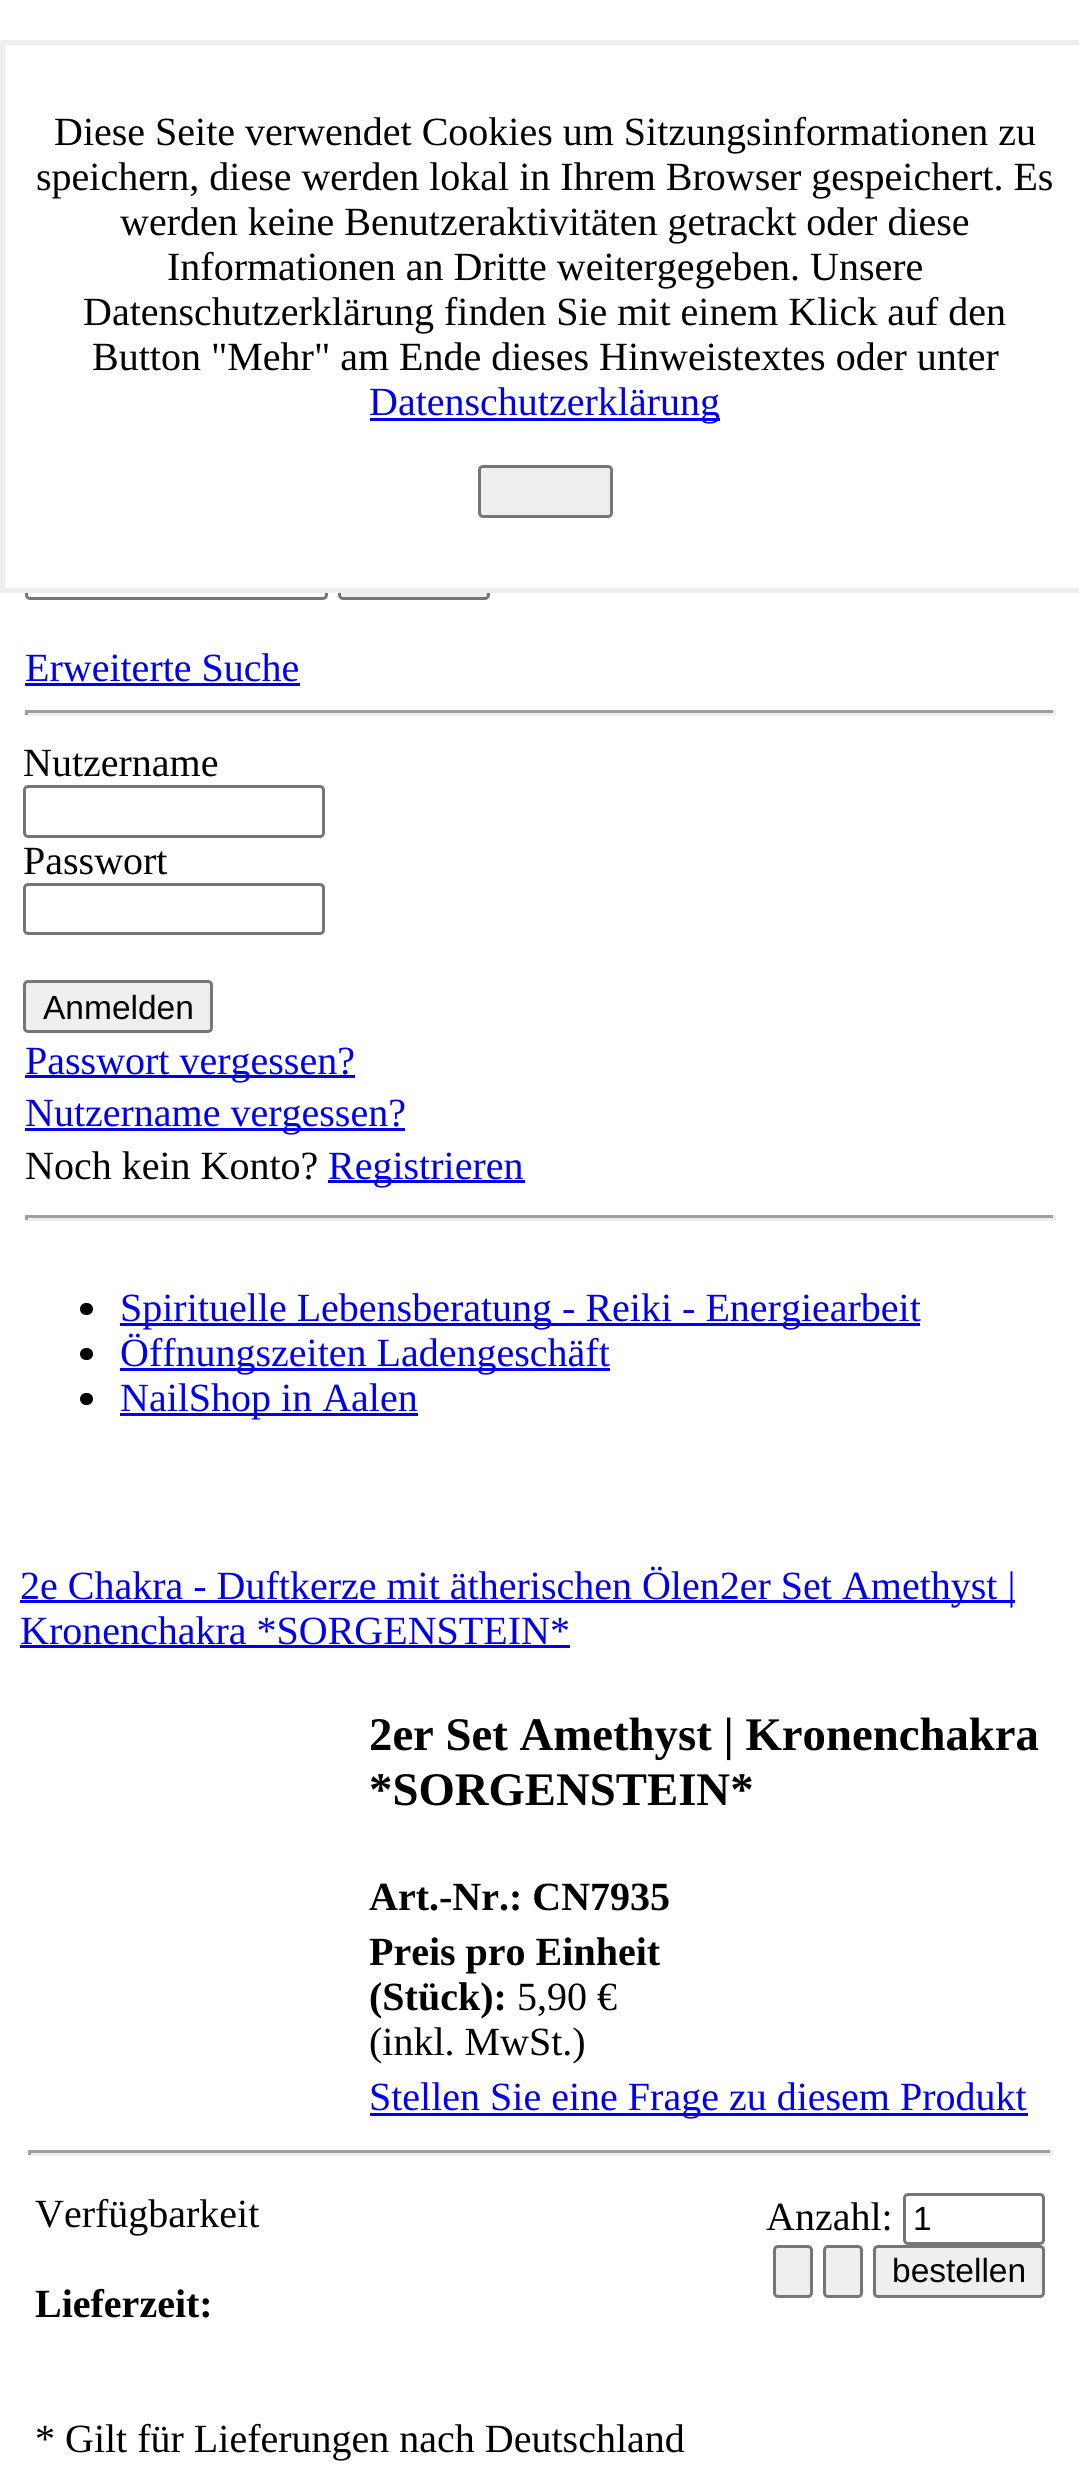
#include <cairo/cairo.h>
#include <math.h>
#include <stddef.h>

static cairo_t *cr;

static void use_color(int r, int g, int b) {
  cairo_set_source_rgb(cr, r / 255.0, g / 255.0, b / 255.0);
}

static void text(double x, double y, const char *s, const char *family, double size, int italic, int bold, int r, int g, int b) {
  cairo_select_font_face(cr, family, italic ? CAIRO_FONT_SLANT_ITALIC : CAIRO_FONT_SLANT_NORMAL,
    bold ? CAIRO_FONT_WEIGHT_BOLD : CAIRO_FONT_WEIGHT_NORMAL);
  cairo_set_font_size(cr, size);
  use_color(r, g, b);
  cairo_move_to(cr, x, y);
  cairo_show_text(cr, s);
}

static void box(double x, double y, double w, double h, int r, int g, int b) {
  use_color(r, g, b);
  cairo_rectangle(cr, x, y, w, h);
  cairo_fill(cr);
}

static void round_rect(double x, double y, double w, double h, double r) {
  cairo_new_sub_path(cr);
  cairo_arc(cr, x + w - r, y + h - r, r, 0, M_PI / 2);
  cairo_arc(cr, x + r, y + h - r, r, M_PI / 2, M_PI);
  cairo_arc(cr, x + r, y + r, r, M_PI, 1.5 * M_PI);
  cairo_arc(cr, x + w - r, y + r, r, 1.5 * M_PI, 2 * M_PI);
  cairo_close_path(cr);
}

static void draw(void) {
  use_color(255, 255, 255);
  cairo_paint(cr);
  round_rect(26.5, 549.5, 300, 49, 3.5);
  use_color(118, 118, 118);
  cairo_set_line_width(cr, 3);
  cairo_stroke(cr);
  use_color(239, 239, 239);
  round_rect(339.5, 549.5, 149, 49, 3.5);
  cairo_fill_preserve(cr);
  use_color(118, 118, 118);
  cairo_stroke(cr);
  box(25, 548, 465, 40, 255, 255, 255);
  cairo_rectangle(cr, 2.5, 42.5, 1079, 548);
  use_color(238, 238, 238);
  cairo_set_line_width(cr, 5);
  cairo_stroke(cr);
  box(370, 418, 350, 3, 0, 0, 238);
  use_color(239, 239, 239);
  round_rect(479.5, 466.5, 132, 50, 3.5);
  cairo_fill_preserve(cr);
  use_color(118, 118, 118);
  cairo_set_line_width(cr, 3);
  cairo_stroke(cr);
  box(25, 683, 275, 3, 0, 0, 238);
  box(25, 710, 1030, 3, 159, 159, 159);
  box(1053, 710, 3, 5, 238, 238, 238);
  box(25, 713, 1030, 3, 238, 238, 238);
  box(25, 710, 3, 5, 159, 159, 159);
  round_rect(24.5, 786.5, 299, 50, 3.5);
  use_color(118, 118, 118);
  cairo_stroke(cr);
  round_rect(24.5, 884.5, 299, 49, 3.5);
  cairo_stroke(cr);
  use_color(239, 239, 239);
  round_rect(24.5, 981.5, 187, 50, 3.5);
  cairo_fill_preserve(cr);
  use_color(118, 118, 118);
  cairo_stroke(cr);
  box(25, 1075, 330, 3, 0, 0, 238);
  box(25, 1128, 380, 3, 0, 0, 238);
  box(328, 1180, 197, 3, 0, 0, 238);
  box(25, 1215, 1030, 3, 159, 159, 159);
  box(1053, 1215, 3, 5, 238, 238, 238);
  box(25, 1218, 1030, 3, 238, 238, 238);
  box(25, 1215, 3, 5, 159, 159, 159);
  use_color(0, 0, 0);
  round_rect(80, 1303, 13, 12, 6);
  cairo_fill(cr);
  box(120, 1323, 800, 3, 0, 0, 238);
  use_color(0, 0, 0);
  round_rect(80, 1348, 13, 12, 6);
  cairo_fill(cr);
  box(120, 1368, 490, 3, 0, 0, 238);
  use_color(0, 0, 0);
  round_rect(80, 1393, 13, 12, 6);
  cairo_fill(cr);
  box(120, 1413, 298, 3, 0, 0, 238);
  box(20, 1600, 995, 3, 0, 0, 238);
  box(20, 1645, 550, 3, 0, 0, 238);
  box(370, 2113, 658, 3, 0, 0, 238);
  box(28, 2150, 1025, 3, 159, 159, 159);
  box(1050, 2150, 3, 5, 238, 238, 238);
  box(28, 2153, 1025, 3, 238, 238, 238);
  box(28, 2150, 3, 5, 159, 159, 159);
  round_rect(904.5, 2194.5, 139, 49, 3.5);
  use_color(118, 118, 118);
  cairo_stroke(cr);
  use_color(239, 239, 239);
  round_rect(774.5, 2246.5, 37, 50, 3.5);
  cairo_fill_preserve(cr);
  use_color(118, 118, 118);
  cairo_stroke(cr);
  use_color(239, 239, 239);
  round_rect(824.5, 2246.5, 37, 50, 3.5);
  cairo_fill_preserve(cr);
  use_color(118, 118, 118);
  cairo_stroke(cr);
  use_color(239, 239, 239);
  round_rect(874.5, 2246.5, 169, 50, 3.5);
  cairo_fill_preserve(cr);
  use_color(118, 118, 118);
  cairo_stroke(cr);
  text(54, 145, "Diese Seite verwendet Cookies um Sitzungsinformationen zu", "Liberation Serif", 40, 0, 0, 0, 0, 0);
  text(36, 190, "speichern, diese werden lokal in Ihrem Browser gespeichert. Es", "Liberation Serif", 40, 0, 0, 0, 0, 0);
  text(120, 235, "werden keine Benutzeraktivitäten getrackt oder diese", "Liberation Serif", 40, 0, 0, 0, 0, 0);
  text(167, 280, "Informationen an Dritte weitergegeben. Unsere", "Liberation Serif", 40, 0, 0, 0, 0, 0);
  text(83, 325, "Datenschutzerklärung finden Sie mit einem Klick auf den", "Liberation Serif", 40, 0, 0, 0, 0, 0);
  text(92, 370, "Button \"Mehr\" am Ende dieses Hinweistextes oder unter", "Liberation Serif", 40, 0, 0, 0, 0, 0);
  text(369, 415, "Datenschutzerklärung", "Liberation Serif", 40, 0, 0, 0, 0, 238);
  text(25, 681, "Erweiterte Suche", "Liberation Serif", 40, 0, 0, 0, 0, 238);
  text(23, 776, "Nutzername", "Liberation Serif", 40, 0, 0, 0, 0, 0);
  text(23, 874, "Passwort", "Liberation Serif", 40, 0, 0, 0, 0, 0);
  text(43, 1019, "Anmelden", "Liberation Sans", 33.5, 0, 0, 0, 0, 0);
  text(25, 1074, "Passwort vergessen?", "Liberation Serif", 40, 0, 0, 0, 0, 238);
  text(25, 1126, "Nutzername vergessen?", "Liberation Serif", 40, 0, 0, 0, 0, 238);
  text(25, 1179, "Noch kein Konto?", "Liberation Serif", 40, 0, 0, 0, 0, 0);
  text(328, 1179, "Registrieren", "Liberation Serif", 40, 0, 0, 0, 0, 238);
  text(120, 1321, "Spirituelle Lebensberatung - Reiki - Energiearbeit", "Liberation Serif", 40, 0, 0, 0, 0, 238);
  text(120, 1366, "Öffnungszeiten Ladengeschäft", "Liberation Serif", 40, 0, 0, 0, 0, 238);
  text(120, 1411, "NailShop in Aalen", "Liberation Serif", 40, 0, 0, 0, 0, 238);
  text(20, 1599, "2e Chakra - Duftkerze mit ätherischen Ölen2er Set Amethyst |", "Liberation Serif", 40, 0, 0, 0, 0, 238);
  text(20, 1644, "Kronenchakra *SORGENSTEIN*", "Liberation Serif", 40, 0, 0, 0, 0, 238);
  text(369, 1750, "2er Set Amethyst | Kronenchakra", "Liberation Serif", 46.75, 0, 1, 0, 0, 0);
  text(369, 1805, "*SORGENSTEIN*", "Liberation Serif", 46.75, 0, 1, 0, 0, 0);
  text(369, 1910, "Art.-Nr.: CN7935", "Liberation Serif", 40, 0, 1, 0, 0, 0);
  text(369, 1965, "Preis pro Einheit", "Liberation Serif", 40, 0, 1, 0, 0, 0);
  text(369, 2010, "(Stück):", "Liberation Serif", 40, 0, 1, 0, 0, 0);
  text(517, 2010, "5,90 €", "Liberation Serif", 40, 0, 0, 0, 0, 0);
  text(369, 2055, "(inkl. MwSt.)", "Liberation Serif", 40, 0, 0, 0, 0, 0);
  text(369, 2110, "Stellen Sie eine Frage zu diesem Produkt", "Liberation Serif", 40, 0, 0, 0, 0, 238);
  text(35, 2227, "Verfügbarkeit", "Liberation Serif", 40, 0, 0, 0, 0, 0);
  text(35, 2317, "Lieferzeit:", "Liberation Serif", 40, 0, 1, 0, 0, 0);
  text(35, 2452, "* Gilt für Lieferungen nach Deutschland", "Liberation Serif", 40, 0, 0, 0, 0, 0);
  text(766, 2230, "Anzahl:", "Liberation Serif", 40, 0, 0, 0, 0, 0);
  text(913, 2230, "1", "Liberation Sans", 33.5, 0, 0, 0, 0, 0);
  text(892, 2282, "bestellen", "Liberation Sans", 33.5, 0, 0, 0, 0, 0);
}

int main(void) {
  cairo_surface_t *surface = cairo_image_surface_create(CAIRO_FORMAT_RGB24, 1079, 2475);
  cr = cairo_create(surface);
  cairo_font_options_t *options = cairo_font_options_create();
  cairo_font_options_set_hint_metrics(options, CAIRO_HINT_METRICS_OFF);
  cairo_font_options_set_hint_style(options, CAIRO_HINT_STYLE_NONE);
  cairo_set_font_options(cr, options);
  cairo_set_miter_limit(cr, 4);
  draw();
  cairo_surface_write_to_png(surface, "out.png");
  cairo_font_options_destroy(options);
  cairo_destroy(cr);
  cairo_surface_destroy(surface);
  return 0;
}
